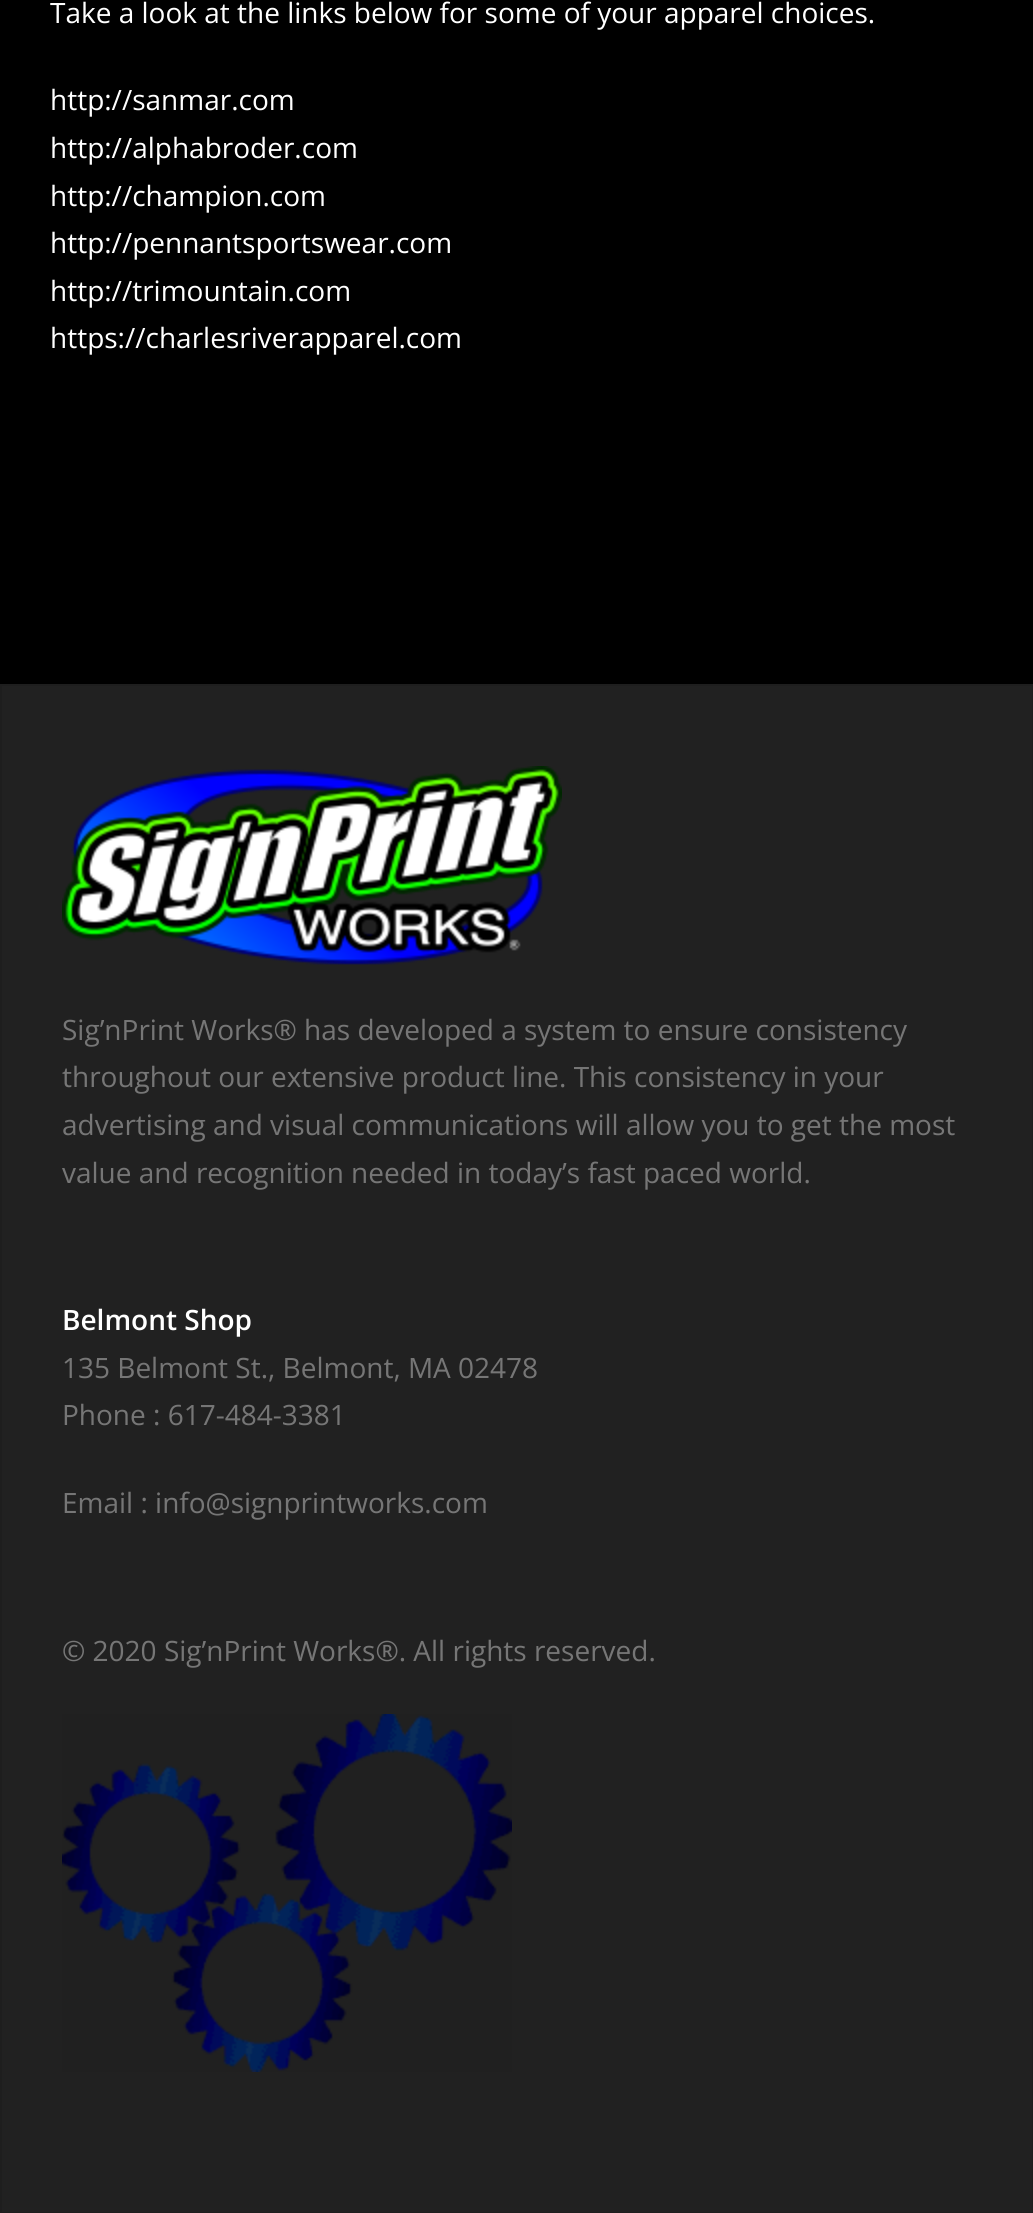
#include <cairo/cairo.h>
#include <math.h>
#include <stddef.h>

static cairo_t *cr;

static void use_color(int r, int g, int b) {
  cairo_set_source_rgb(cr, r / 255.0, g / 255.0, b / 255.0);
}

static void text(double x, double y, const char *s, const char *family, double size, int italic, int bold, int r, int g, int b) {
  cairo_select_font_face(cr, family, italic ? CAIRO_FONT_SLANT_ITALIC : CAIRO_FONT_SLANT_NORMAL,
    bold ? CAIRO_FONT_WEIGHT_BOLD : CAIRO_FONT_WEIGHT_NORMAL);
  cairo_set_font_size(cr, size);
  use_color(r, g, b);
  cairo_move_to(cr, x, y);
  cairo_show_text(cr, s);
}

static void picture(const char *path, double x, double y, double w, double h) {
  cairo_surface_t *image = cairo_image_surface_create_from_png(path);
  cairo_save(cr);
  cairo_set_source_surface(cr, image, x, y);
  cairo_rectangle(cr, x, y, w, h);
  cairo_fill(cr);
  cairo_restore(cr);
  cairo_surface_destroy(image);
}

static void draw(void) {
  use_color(0, 0, 0);
  cairo_paint(cr);
  use_color(33, 33, 33);
  cairo_rectangle(cr, 1, 685, 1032, 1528);
  cairo_fill_preserve(cr);
  use_color(30, 30, 30);
  cairo_stroke(cr);
  picture("img_01.png", 62, 766, 500, 199);
  picture("img_02.png", 62, 1714, 450, 358);
  text(50, 23, "Take a look at the links below for some of your apparel choices.", "Open Sans", 28, 0, 0, 255, 255, 255);
  text(50, 110, "http://sanmar.com", "Open Sans", 28, 0, 0, 255, 255, 255);
  text(50, 158, "http://alphabroder.com", "Open Sans", 28, 0, 0, 255, 255, 255);
  text(50, 206, "http://champion.com", "Open Sans", 28, 0, 0, 255, 255, 255);
  text(50, 253, "http://pennantsportswear.com", "Open Sans", 28, 0, 0, 255, 255, 255);
  text(50, 301, "http://trimountain.com", "Open Sans", 28, 0, 0, 255, 255, 255);
  text(50, 348, "https://charlesriverapparel.com", "Open Sans", 28, 0, 0, 255, 255, 255);
  text(62, 1040, "Sig’nPrint Works® has developed a system to ensure consistency", "Open Sans", 28, 0, 0, 118, 118, 118);
  text(62, 1087, "throughout our extensive product line. This consistency in your", "Open Sans", 28, 0, 0, 118, 118, 118);
  text(62, 1135, "advertising and visual communications will allow you to get the most", "Open Sans", 28, 0, 0, 118, 118, 118);
  text(62, 1183, "value and recognition needed in today’s fast paced world.", "Open Sans", 28, 0, 0, 118, 118, 118);
  text(62, 1330, "Belmont Shop", "Open Sans SemiBold", 28, 0, 0, 255, 255, 255);
  text(62, 1378, "135 Belmont St., Belmont, MA 02478", "Open Sans", 28, 0, 0, 118, 118, 118);
  text(62, 1425, "Phone : 617-484-3381", "Open Sans", 28, 0, 0, 118, 118, 118);
  text(62, 1513, "Email : info@signprintworks.com", "Open Sans", 28, 0, 0, 118, 118, 118);
  text(62, 1661, "© 2020 Sig’nPrint Works®. All rights reserved.", "Open Sans", 28, 0, 0, 118, 118, 118);
}

int main(void) {
  cairo_surface_t *surface = cairo_image_surface_create(CAIRO_FORMAT_RGB24, 1033, 2213);
  cr = cairo_create(surface);
  cairo_font_options_t *options = cairo_font_options_create();
  cairo_font_options_set_hint_metrics(options, CAIRO_HINT_METRICS_OFF);
  cairo_font_options_set_hint_style(options, CAIRO_HINT_STYLE_NONE);
  cairo_set_font_options(cr, options);
  cairo_set_miter_limit(cr, 4);
  draw();
  cairo_surface_write_to_png(surface, "out.png");
  cairo_font_options_destroy(options);
  cairo_destroy(cr);
  cairo_surface_destroy(surface);
  return 0;
}
